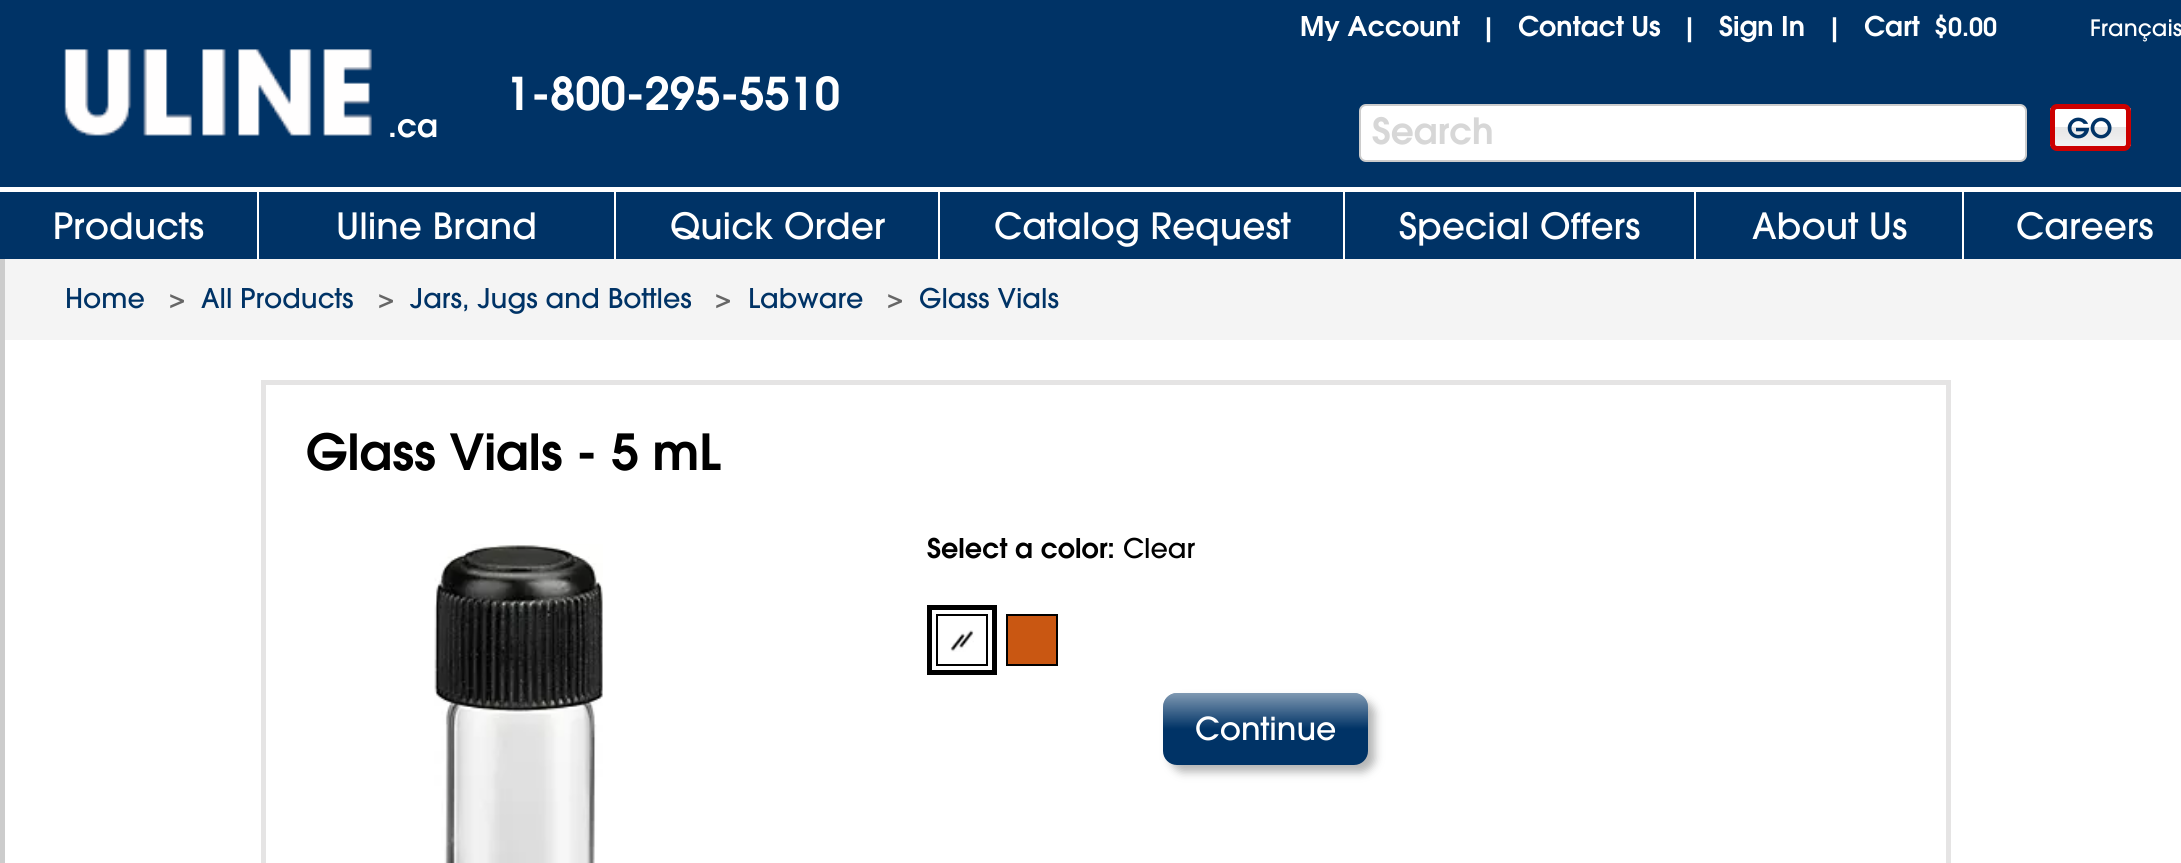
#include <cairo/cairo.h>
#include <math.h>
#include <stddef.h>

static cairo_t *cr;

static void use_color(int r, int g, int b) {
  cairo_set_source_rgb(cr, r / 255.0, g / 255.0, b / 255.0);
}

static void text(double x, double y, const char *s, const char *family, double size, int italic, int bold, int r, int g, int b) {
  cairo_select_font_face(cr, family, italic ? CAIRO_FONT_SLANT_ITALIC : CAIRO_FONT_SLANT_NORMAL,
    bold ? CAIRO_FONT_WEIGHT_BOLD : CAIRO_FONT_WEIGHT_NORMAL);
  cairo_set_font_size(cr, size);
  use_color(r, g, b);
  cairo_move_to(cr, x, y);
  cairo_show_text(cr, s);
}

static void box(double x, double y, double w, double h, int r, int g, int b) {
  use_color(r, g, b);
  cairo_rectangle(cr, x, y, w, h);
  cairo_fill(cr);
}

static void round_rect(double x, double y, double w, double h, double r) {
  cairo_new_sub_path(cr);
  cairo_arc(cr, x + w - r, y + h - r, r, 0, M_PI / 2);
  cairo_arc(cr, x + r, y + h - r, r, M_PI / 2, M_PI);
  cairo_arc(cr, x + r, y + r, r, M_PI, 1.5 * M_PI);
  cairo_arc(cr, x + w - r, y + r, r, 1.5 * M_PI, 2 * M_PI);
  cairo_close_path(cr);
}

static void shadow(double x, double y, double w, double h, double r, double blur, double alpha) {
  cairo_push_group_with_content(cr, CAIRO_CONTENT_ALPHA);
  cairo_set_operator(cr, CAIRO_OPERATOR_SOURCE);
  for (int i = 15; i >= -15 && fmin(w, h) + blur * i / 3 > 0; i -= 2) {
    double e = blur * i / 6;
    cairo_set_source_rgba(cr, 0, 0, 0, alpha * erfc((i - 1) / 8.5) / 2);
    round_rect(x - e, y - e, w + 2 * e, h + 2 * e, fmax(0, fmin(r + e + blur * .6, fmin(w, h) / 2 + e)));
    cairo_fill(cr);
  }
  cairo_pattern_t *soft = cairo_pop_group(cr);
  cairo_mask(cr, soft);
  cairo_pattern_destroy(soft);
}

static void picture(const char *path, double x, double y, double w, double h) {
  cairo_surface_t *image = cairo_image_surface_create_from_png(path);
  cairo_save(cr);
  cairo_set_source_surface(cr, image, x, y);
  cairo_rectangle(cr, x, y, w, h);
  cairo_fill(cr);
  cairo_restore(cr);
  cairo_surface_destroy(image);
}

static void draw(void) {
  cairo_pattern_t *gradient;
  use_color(255, 255, 255);
  cairo_paint(cr);
  box(0, 0, 2181, 259, 0, 51, 102);
  picture("img_01.png", 64, 49, 308, 87);
  use_color(255, 255, 255);
  round_rect(1360, 105, 666, 56, 6);
  cairo_fill_preserve(cr);
  use_color(204, 204, 204);
  cairo_stroke(cr);
  cairo_save(cr);
  round_rect(2050, 104, 81, 47, 7);
  cairo_clip(cr);
  gradient = cairo_pattern_create_linear(2090, 108, 2090, 146);
  cairo_pattern_add_color_stop_rgba(gradient, 0.5, 1, 1, 1, 1);
  cairo_pattern_add_color_stop_rgba(gradient, 0.5, 0.906, 0.906, 0.906, 1);
  cairo_pattern_add_color_stop_rgba(gradient, 1, 0.945, 0.945, 0.945, 1);
  cairo_set_source(cr, gradient);
  cairo_pattern_destroy(gradient);
  cairo_rectangle(cr, 2050, 108, 81, 38);
  cairo_fill(cr);
  cairo_restore(cr);
  round_rect(2052.5, 106.5, 76, 42, 4.5);
  use_color(204, 0, 0);
  cairo_set_line_width(cr, 5);
  cairo_stroke(cr);
  box(0, 187, 2181, 5, 255, 255, 255);
  box(257, 191, 2, 68, 255, 255, 255);
  box(614, 191, 2, 68, 255, 255, 255);
  box(938, 191, 2, 68, 255, 255, 255);
  box(1343, 191, 2, 68, 255, 255, 255);
  box(1694, 191, 2, 68, 255, 255, 255);
  box(1962, 191, 2, 68, 255, 255, 255);
  box(0, 259, 5, 604, 204, 204, 204);
  box(5, 259, 2176, 81, 244, 244, 244);
  cairo_rectangle(cr, 263.5, 382.5, 1685, 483);
  use_color(229, 228, 228);
  cairo_stroke(cr);
  picture("img_02.png", 434, 544, 169, 319);
  cairo_rectangle(cr, 929.5, 607.5, 65, 65);
  use_color(0, 0, 0);
  cairo_stroke(cr);
  picture("img_03.png", 950, 630, 24, 22);
  cairo_rectangle(cr, 937, 615, 50, 50);
  cairo_set_line_width(cr, 2);
  cairo_stroke(cr);
  use_color(201, 87, 18);
  cairo_rectangle(cr, 1007, 615, 50, 50);
  cairo_fill_preserve(cr);
  use_color(0, 0, 0);
  cairo_stroke(cr);
  use_color(180, 181, 181);
  shadow(1170, 700, 205, 72, 14, 4.5, 1);
  use_color(0, 51, 102);
  round_rect(1163, 693, 205, 72, 14);
  cairo_fill(cr);
  gradient = cairo_pattern_create_linear(1266, 693, 1266, 765);
  cairo_pattern_add_color_stop_rgba(gradient, 0, 1, 1, 1, 0.5);
  cairo_pattern_add_color_stop_rgba(gradient, 0.5, 1, 1, 1, 0);
  cairo_set_source(cr, gradient);
  cairo_pattern_destroy(gradient);
  round_rect(1163, 693, 205, 72, 14);
  cairo_fill(cr);
  text(1300, 36, "My Account", "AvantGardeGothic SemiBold", 27, 0, 0, 255, 255, 255);
  text(1481, 36, "|", "AvantGardeGothic SemiBold", 25, 0, 0, 255, 255, 255);
  text(1518, 36, "Contact Us", "AvantGardeGothic SemiBold", 27, 0, 0, 255, 255, 255);
  text(1682, 36, "|", "AvantGardeGothic SemiBold", 25, 0, 0, 255, 255, 255);
  text(1719, 36, "Sign In", "AvantGardeGothic SemiBold", 27, 0, 0, 255, 255, 255);
  text(1827, 36, "|", "AvantGardeGothic SemiBold", 25, 0, 0, 255, 255, 255);
  text(1864, 36, "Cart", "AvantGardeGothic SemiBold", 27, 0, 0, 255, 255, 255);
  text(1934, 36, "$0.00", "AvantGardeGothic SemiBold", 25, 0, 0, 255, 255, 255);
  text(2090, 36, "Français", "AvantGardeGothic Medium", 22.5, 0, 0, 255, 255, 255);
  text(506, 110, "1-800-295-5510", "AvantGardeGothic SemiBold", 45, 0, 0, 255, 255, 255);
  text(388, 137, ".ca", "AvantGardeGothic SemiBold", 31.5, 0, 0, 255, 255, 255);
  text(1372, 144, "Search", "AvantGardeGothic SemiBold", 36, 0, 0, 215, 215, 215);
  text(2067, 138, "GO", "AvantGardeGothic SemiBold", 27, 0, 0, 0, 51, 102);
  text(53, 239, "Products", "AvantGardeGothic Medium", 36, 0, 0, 255, 255, 255);
  text(336, 239, "Uline Brand", "AvantGardeGothic Medium", 36, 0, 0, 255, 255, 255);
  text(670, 239, "Quick Order", "AvantGardeGothic Medium", 36, 0, 0, 255, 255, 255);
  text(994, 239, "Catalog Request", "AvantGardeGothic Medium", 36, 0, 0, 255, 255, 255);
  text(1399, 239, "Special Offers", "AvantGardeGothic Medium", 36, 0, 0, 255, 255, 255);
  text(1752, 239, "About Us", "AvantGardeGothic Medium", 36, 0, 0, 255, 255, 255);
  text(2016, 239, "Careers", "AvantGardeGothic Medium", 36, 0, 0, 255, 255, 255);
  text(65, 308, "Home", "AvantGardeGothic Medium", 27, 0, 0, 0, 51, 102);
  text(169, 308, ">", "AvantGardeGothic Medium", 27, 0, 0, 102, 102, 102);
  text(201, 308, "All Products", "AvantGardeGothic Medium", 27, 0, 0, 0, 51, 102);
  text(378, 308, ">", "AvantGardeGothic Medium", 27, 0, 0, 102, 102, 102);
  text(410, 308, "Jars, Jugs and Bottles", "AvantGardeGothic Medium", 27, 0, 0, 0, 51, 102);
  text(715, 308, ">", "AvantGardeGothic Medium", 27, 0, 0, 102, 102, 102);
  text(748, 308, "Labware", "AvantGardeGothic Medium", 27, 0, 0, 0, 51, 102);
  text(887, 308, ">", "AvantGardeGothic Medium", 27, 0, 0, 102, 102, 102);
  text(919, 308, "Glass Vials", "AvantGardeGothic Medium", 27, 0, 0, 0, 51, 102);
  text(306, 470, "Glass Vials - 5 mL", "AvantGardeGothic SemiBold", 49.5, 0, 0, 0, 0, 0);
  text(927, 558, "Select a color:", "AvantGardeGothic SemiBold", 27, 0, 0, 0, 0, 0);
  text(1123, 558, "Clear", "AvantGardeGothic Medium", 27, 0, 0, 0, 0, 0);
  text(1195, 740, "Continue", "AvantGardeGothic Medium", 31.5, 0, 0, 255, 255, 255);
}

int main(void) {
  cairo_surface_t *surface = cairo_image_surface_create(CAIRO_FORMAT_RGB24, 2181, 863);
  cr = cairo_create(surface);
  cairo_font_options_t *options = cairo_font_options_create();
  cairo_font_options_set_hint_metrics(options, CAIRO_HINT_METRICS_OFF);
  cairo_font_options_set_hint_style(options, CAIRO_HINT_STYLE_NONE);
  cairo_set_font_options(cr, options);
  cairo_set_miter_limit(cr, 4);
  draw();
  cairo_surface_write_to_png(surface, "out.png");
  cairo_font_options_destroy(options);
  cairo_destroy(cr);
  cairo_surface_destroy(surface);
  return 0;
}
